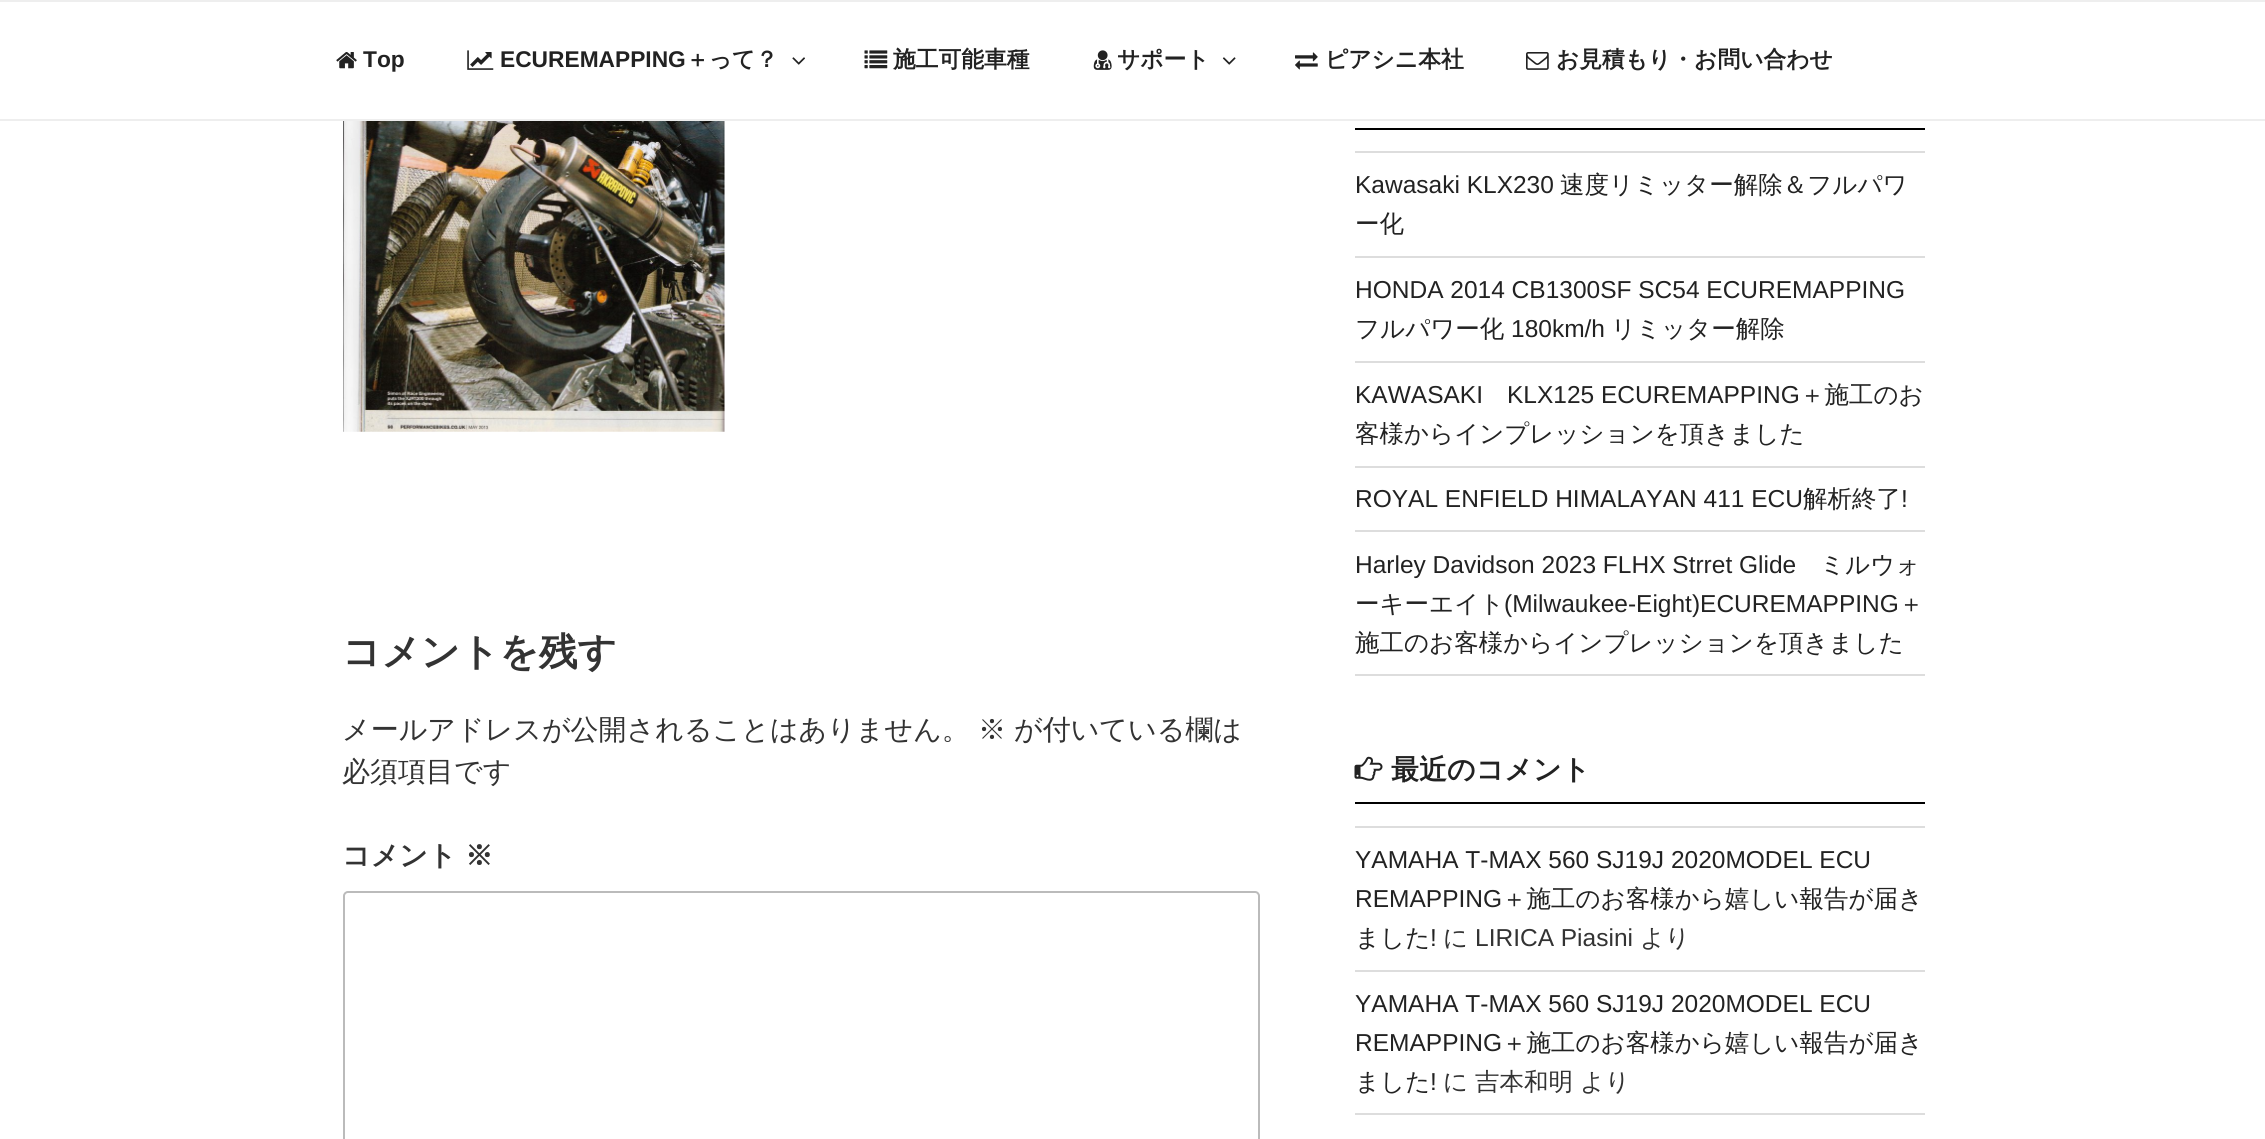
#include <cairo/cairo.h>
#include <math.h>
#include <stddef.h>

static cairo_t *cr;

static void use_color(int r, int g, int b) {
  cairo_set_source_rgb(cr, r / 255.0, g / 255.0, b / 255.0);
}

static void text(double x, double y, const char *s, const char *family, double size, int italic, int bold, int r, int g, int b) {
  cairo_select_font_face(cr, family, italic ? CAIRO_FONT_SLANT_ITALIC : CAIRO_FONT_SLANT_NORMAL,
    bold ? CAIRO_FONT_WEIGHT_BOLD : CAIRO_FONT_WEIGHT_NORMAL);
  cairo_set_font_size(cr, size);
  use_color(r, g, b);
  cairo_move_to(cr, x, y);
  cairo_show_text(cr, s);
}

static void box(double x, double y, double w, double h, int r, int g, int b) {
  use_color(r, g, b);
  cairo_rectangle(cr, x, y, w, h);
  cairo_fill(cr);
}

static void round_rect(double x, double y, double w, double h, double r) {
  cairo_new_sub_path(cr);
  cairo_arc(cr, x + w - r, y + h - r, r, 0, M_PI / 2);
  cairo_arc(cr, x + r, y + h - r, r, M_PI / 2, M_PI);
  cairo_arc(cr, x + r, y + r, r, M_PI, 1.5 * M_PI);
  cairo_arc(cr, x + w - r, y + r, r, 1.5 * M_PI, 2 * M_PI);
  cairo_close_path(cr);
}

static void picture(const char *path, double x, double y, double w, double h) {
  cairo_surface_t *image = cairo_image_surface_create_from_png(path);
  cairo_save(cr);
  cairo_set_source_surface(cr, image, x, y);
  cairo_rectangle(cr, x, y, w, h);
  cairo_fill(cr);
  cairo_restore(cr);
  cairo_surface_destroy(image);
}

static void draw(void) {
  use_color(255, 255, 255);
  cairo_paint(cr);
  box(0, 0, 2265, 2, 238, 238, 238);
  box(0, 119, 2265, 2, 238, 238, 238);
  picture("img_01.png", 336, 52, 21, 17);
  picture("img_02.png", 467, 50, 27, 20);
  picture("img_03.png", 792, 57, 13, 8);
  picture("img_04.png", 864, 50, 24, 19);
  picture("img_05.png", 1093, 50, 19, 20);
  picture("img_06.png", 1222, 57, 14, 8);
  picture("img_07.png", 1295, 52, 23, 18);
  picture("img_08.png", 1526, 52, 23, 18);
  picture("img_09.png", 343, 121, 382, 311);
  round_rect(344, 892, 915, 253, 4);
  use_color(187, 187, 187);
  cairo_stroke(cr);
  box(1355, 128, 570, 2, 0, 0, 0);
  box(1355, 151, 570, 2, 221, 221, 221);
  box(1355, 256, 570, 2, 221, 221, 221);
  box(1355, 361, 570, 2, 221, 221, 221);
  box(1355, 466, 570, 2, 221, 221, 221);
  box(1355, 530, 570, 2, 221, 221, 221);
  box(1355, 674, 570, 2, 221, 221, 221);
  box(1355, 802, 570, 2, 0, 0, 0);
  picture("img_10.png", 1354, 756, 29, 25);
  box(1355, 826, 570, 2, 221, 221, 221);
  box(1355, 970, 570, 2, 221, 221, 221);
  box(1355, 1113, 570, 2, 221, 221, 221);
  text(363, 67, "Top", "Liberation Sans", 22.75, 0, 1, 34, 34, 34);
  text(500, 67, "ECUREMAPPING", "Liberation Sans", 22.75, 0, 1, 34, 34, 34);
  text(686, 67, "＋って？", "WenQuanYi Zen Hei", 22.75, 0, 1, 34, 34, 34);
  text(893, 67, "施工可能車種", "WenQuanYi Zen Hei", 22.75, 0, 1, 34, 34, 34);
  text(1117, 67, "サポート", "WenQuanYi Zen Hei", 22.75, 0, 1, 34, 34, 34);
  text(1325, 67, "ピアシニ本社", "WenQuanYi Zen Hei", 22.75, 0, 1, 34, 34, 34);
  text(1556, 67, "お見積もり・お問い合わせ", "WenQuanYi Zen Hei", 22.75, 0, 1, 34, 34, 34);
  text(342, 665, "コメントを残す", "WenQuanYi Zen Hei", 38.5, 0, 1, 51, 51, 51);
  text(342, 739, "メールアドレスが公開されることはありません。", "WenQuanYi Zen Hei Medium", 28, 0, 0, 51, 51, 51);
  text(978, 739, "※", "WenQuanYi Zen Hei Medium", 28, 0, 0, 51, 51, 51);
  text(1014, 739, "が付いている欄は", "WenQuanYi Zen Hei Medium", 28, 0, 0, 51, 51, 51);
  text(342, 781, "必須項目です", "WenQuanYi Zen Hei Medium", 28, 0, 0, 51, 51, 51);
  text(342, 865, "コメント", "WenQuanYi Zen Hei", 28, 0, 1, 51, 51, 51);
  text(465, 865, "※", "WenQuanYi Zen Hei", 28, 0, 1, 51, 51, 51);
  text(1355, 193, "Kawasaki KLX230", "Liberation Sans", 24.5, 0, 0, 34, 34, 34);
  text(1560, 193, "速度リミッター解除＆フルパワ", "WenQuanYi Zen Hei Medium", 24.5, 0, 0, 34, 34, 34);
  text(1355, 232, "ー化", "WenQuanYi Zen Hei Medium", 24.5, 0, 0, 34, 34, 34);
  text(1355, 298, "HONDA 2014 CB1300SF SC54 ECUREMAPPING", "Liberation Sans", 24.5, 0, 0, 34, 34, 34);
  text(1355, 337, "フルパワー化", "WenQuanYi Zen Hei Medium", 24.5, 0, 0, 34, 34, 34);
  text(1511, 337, "180km/h", "Liberation Sans", 24.5, 0, 0, 34, 34, 34);
  text(1611, 337, "リミッター解除", "WenQuanYi Zen Hei Medium", 24.5, 0, 0, 34, 34, 34);
  text(1355, 403, "KAWASAKI", "Liberation Sans", 24.5, 0, 0, 34, 34, 34);
  text(1507, 403, "KLX125 ECUREMAPPING", "Liberation Sans", 24.5, 0, 0, 34, 34, 34);
  text(1800, 403, "＋施工のお", "WenQuanYi Zen Hei Medium", 24.5, 0, 0, 34, 34, 34);
  text(1355, 442, "客様からインプレッションを頂きました", "WenQuanYi Zen Hei Medium", 24.5, 0, 0, 34, 34, 34);
  text(1355, 507, "ROYAL ENFIELD HIMALAYAN 411 ECU", "Liberation Sans", 24.5, 0, 0, 34, 34, 34);
  text(1803, 507, "解析終了", "WenQuanYi Zen Hei Medium", 24.5, 0, 0, 34, 34, 34);
  text(1901, 507, "!", "Liberation Sans", 24.5, 0, 0, 34, 34, 34);
  text(1355, 573, "Harley Davidson 2023 FLHX Strret Glide", "Liberation Sans", 24.5, 0, 0, 34, 34, 34);
  text(1820, 573, "ミルウォ", "WenQuanYi Zen Hei Medium", 24.5, 0, 0, 34, 34, 34);
  text(1355, 612, "ーキーエイト", "WenQuanYi Zen Hei Medium", 24.5, 0, 0, 34, 34, 34);
  text(1504, 612, "(Milwaukee-Eight)ECUREMAPPING", "Liberation Sans", 24.5, 0, 0, 34, 34, 34);
  text(1899, 612, "＋", "WenQuanYi Zen Hei Medium", 24.5, 0, 0, 34, 34, 34);
  text(1355, 651, "施工のお客様からインプレッションを頂きました", "WenQuanYi Zen Hei Medium", 24.5, 0, 0, 34, 34, 34);
  text(1391, 779, "最近のコメント", "WenQuanYi Zen Hei", 28, 0, 1, 34, 34, 34);
  text(1355, 868, "YAMAHA T-MAX 560 SJ19J 2020MODEL ECU", "Liberation Sans", 24.5, 0, 0, 34, 34, 34);
  text(1355, 907, "REMAPPING", "Liberation Sans", 24.5, 0, 0, 34, 34, 34);
  text(1502, 907, "＋施工のお客様から嬉しい報告が届き", "WenQuanYi Zen Hei Medium", 24.5, 0, 0, 34, 34, 34);
  text(1355, 946, "ました", "WenQuanYi Zen Hei Medium", 24.5, 0, 0, 34, 34, 34);
  text(1430, 946, "!", "Liberation Sans", 24.5, 0, 0, 34, 34, 34);
  text(1443, 946, "に", "WenQuanYi Zen Hei Medium", 24.5, 0, 0, 51, 51, 51);
  text(1475, 946, "LIRICA Piasini", "Liberation Sans", 24.5, 0, 0, 51, 51, 51);
  text(1640, 946, "より", "WenQuanYi Zen Hei Medium", 24.5, 0, 0, 51, 51, 51);
  text(1355, 1012, "YAMAHA T-MAX 560 SJ19J 2020MODEL ECU", "Liberation Sans", 24.5, 0, 0, 34, 34, 34);
  text(1355, 1051, "REMAPPING", "Liberation Sans", 24.5, 0, 0, 34, 34, 34);
  text(1502, 1051, "＋施工のお客様から嬉しい報告が届き", "WenQuanYi Zen Hei Medium", 24.5, 0, 0, 34, 34, 34);
  text(1355, 1090, "ました", "WenQuanYi Zen Hei Medium", 24.5, 0, 0, 34, 34, 34);
  text(1430, 1090, "!", "Liberation Sans", 24.5, 0, 0, 34, 34, 34);
  text(1443, 1090, "に", "WenQuanYi Zen Hei Medium", 24.5, 0, 0, 51, 51, 51);
  text(1475, 1090, "吉本和明", "WenQuanYi Zen Hei Medium", 24.5, 0, 0, 51, 51, 51);
  text(1580, 1090, "より", "WenQuanYi Zen Hei Medium", 24.5, 0, 0, 51, 51, 51);
}

int main(void) {
  cairo_surface_t *surface = cairo_image_surface_create(CAIRO_FORMAT_RGB24, 2265, 1139);
  cr = cairo_create(surface);
  cairo_font_options_t *options = cairo_font_options_create();
  cairo_font_options_set_hint_metrics(options, CAIRO_HINT_METRICS_OFF);
  cairo_font_options_set_hint_style(options, CAIRO_HINT_STYLE_NONE);
  cairo_set_font_options(cr, options);
  cairo_set_miter_limit(cr, 4);
  draw();
  cairo_surface_write_to_png(surface, "out.png");
  cairo_font_options_destroy(options);
  cairo_destroy(cr);
  cairo_surface_destroy(surface);
  return 0;
}
